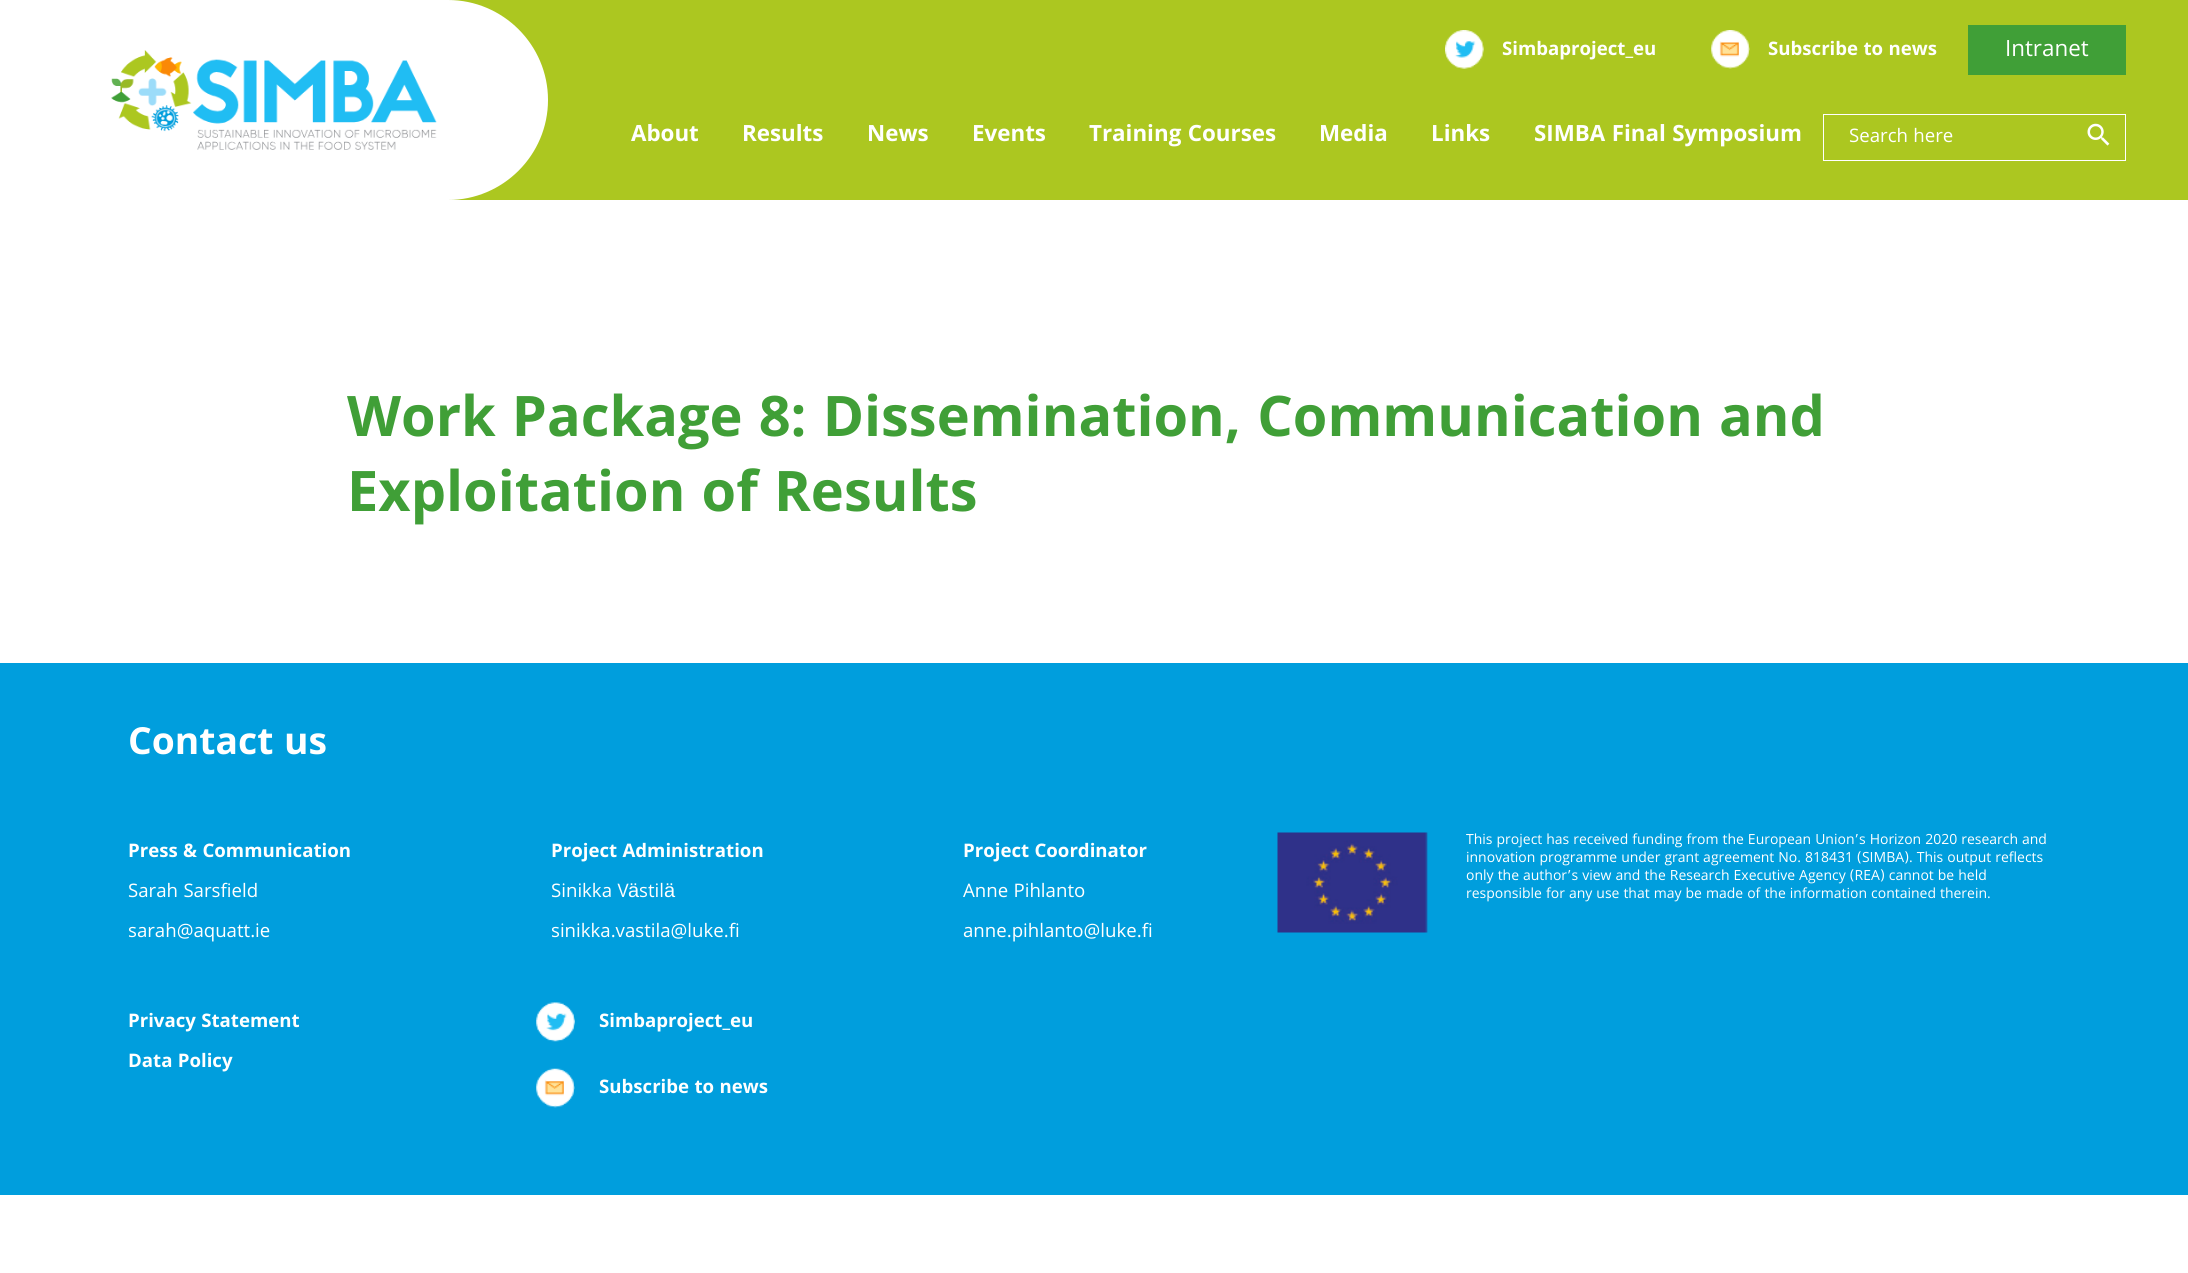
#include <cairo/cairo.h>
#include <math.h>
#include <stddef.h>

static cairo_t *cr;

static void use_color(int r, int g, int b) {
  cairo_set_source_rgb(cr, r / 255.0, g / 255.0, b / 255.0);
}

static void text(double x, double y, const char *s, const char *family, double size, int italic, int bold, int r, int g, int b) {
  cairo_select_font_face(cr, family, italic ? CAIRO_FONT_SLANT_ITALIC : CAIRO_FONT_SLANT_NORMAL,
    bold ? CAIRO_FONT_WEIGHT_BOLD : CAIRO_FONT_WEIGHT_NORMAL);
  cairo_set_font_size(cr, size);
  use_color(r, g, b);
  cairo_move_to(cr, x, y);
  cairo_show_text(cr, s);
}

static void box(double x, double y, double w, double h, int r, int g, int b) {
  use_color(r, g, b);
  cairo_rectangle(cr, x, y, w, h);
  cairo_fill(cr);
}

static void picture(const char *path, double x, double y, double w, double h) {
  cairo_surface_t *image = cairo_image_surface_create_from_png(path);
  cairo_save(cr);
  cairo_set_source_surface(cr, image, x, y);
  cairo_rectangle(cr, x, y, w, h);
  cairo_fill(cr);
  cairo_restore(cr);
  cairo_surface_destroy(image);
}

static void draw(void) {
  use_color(255, 255, 255);
  cairo_paint(cr);
  box(449, 0, 1739, 200, 172, 199, 32);
  use_color(255, 255, 255);
  cairo_new_path(cr);
  cairo_move_to(cr, 0, 0);
  cairo_line_to(cr, 448, 0);
  cairo_curve_to(cr, 503, 0, 548, 45, 548, 100);
  cairo_curve_to(cr, 548, 155, 503, 200, 448, 200);
  cairo_line_to(cr, 0, 200);
  cairo_close_path(cr);
  cairo_fill(cr);
  picture("img_01.png", 111, 50, 326, 100);
  picture("img_02.png", 1445, 30, 39, 39);
  picture("img_03.png", 1711, 30, 39, 39);
  box(1968, 25, 158, 50, 64, 159, 55);
  cairo_rectangle(cr, 1823.5, 114.5, 302, 46);
  use_color(255, 255, 255);
  cairo_set_line_width(cr, 1);
  cairo_stroke(cr);
  picture("img_04.png", 2087, 123, 23, 23);
  box(0, 663, 2188, 532, 0, 158, 221);
  picture("img_05.png", 536, 1002, 39, 40);
  picture("img_06.png", 536, 1068, 39, 40);
  picture("img_07.png", 1277, 832, 151, 101);
  text(1502, 55, "Simbaproject_eu", "Khula", 20, 0, 1, 255, 255, 255);
  text(1768, 55, "Subscribe to news", "Khula", 20, 0, 1, 255, 255, 255);
  text(2005, 56, "Intranet", "Khula", 24, 0, 0, 255, 255, 255);
  text(631, 141, "About", "Khula", 24, 0, 1, 255, 255, 255);
  text(742, 141, "Results", "Khula", 24, 0, 1, 255, 255, 255);
  text(867, 141, "News", "Khula", 24, 0, 1, 255, 255, 255);
  text(972, 141, "Events", "Khula", 24, 0, 1, 255, 255, 255);
  text(1089, 141, "Training Courses", "Khula", 24, 0, 1, 255, 255, 255);
  text(1319, 141, "Media", "Khula", 24, 0, 1, 255, 255, 255);
  text(1431, 141, "Links", "Khula", 24, 0, 1, 255, 255, 255);
  text(1534, 141, "SIMBA Final Symposium", "Khula", 24, 0, 1, 255, 255, 255);
  text(1849, 142, "Search here", "Khula", 20, 0, 0, 255, 255, 255);
  text(347, 436, "Work Package 8: Dissemination, Communication and", "Khula", 60, 0, 1, 64, 159, 55);
  text(347, 511, "Exploitation of Results", "Khula", 60, 0, 1, 64, 159, 55);
  text(128, 754, "Contact us", "Khula", 40, 0, 1, 255, 255, 255);
  text(128, 857, "Press & Communication", "Khula", 20, 0, 1, 255, 255, 255);
  text(128, 897, "Sarah Sarsfield", "Khula", 20, 0, 0, 255, 255, 255);
  text(128, 937, "sarah@aquatt.ie", "Khula", 20, 0, 0, 255, 255, 255);
  text(551, 857, "Project Administration", "Khula", 20, 0, 1, 255, 255, 255);
  text(551, 897, "Sinikka V", "Khula", 20, 0, 0, 255, 255, 255);
  text(628, 897, "ä", "Liberation Sans", 20, 0, 0, 255, 255, 255);
  text(639, 897, "stil", "Khula", 20, 0, 0, 255, 255, 255);
  text(664, 897, "ä", "Liberation Sans", 20, 0, 0, 255, 255, 255);
  text(551, 937, "sinikka.vastila@luke.fi", "Khula", 20, 0, 0, 255, 255, 255);
  text(963, 857, "Project Coordinator", "Khula", 20, 0, 1, 255, 255, 255);
  text(963, 897, "Anne Pihlanto", "Khula", 20, 0, 0, 255, 255, 255);
  text(963, 937, "anne.pihlanto@luke.fi", "Khula", 20, 0, 0, 255, 255, 255);
  text(128, 1027, "Privacy Statement", "Khula", 20, 0, 1, 255, 255, 255);
  text(128, 1067, "Data Policy", "Khula", 20, 0, 1, 255, 255, 255);
  text(599, 1027, "Simbaproject_eu", "Khula", 20, 0, 1, 255, 255, 255);
  text(599, 1093, "Subscribe to news", "Khula", 20, 0, 1, 255, 255, 255);
  text(1466, 844, "This project has received funding from the European Union’s Horizon 2020 research and", "Khula", 15, 0, 0, 255, 255, 255);
  text(1466, 862, "innovation programme under grant agreement No. 818431 (SIMBA). This output reflects", "Khula", 15, 0, 0, 255, 255, 255);
  text(1466, 880, "only the author’s view and the Research Executive Agency (REA) cannot be held", "Khula", 15, 0, 0, 255, 255, 255);
  text(1466, 898, "responsible for any use that may be made of the information contained therein.", "Khula", 15, 0, 0, 255, 255, 255);
}

int main(void) {
  cairo_surface_t *surface = cairo_image_surface_create(CAIRO_FORMAT_RGB24, 2188, 1273);
  cr = cairo_create(surface);
  cairo_font_options_t *options = cairo_font_options_create();
  cairo_font_options_set_hint_metrics(options, CAIRO_HINT_METRICS_OFF);
  cairo_font_options_set_hint_style(options, CAIRO_HINT_STYLE_NONE);
  cairo_set_font_options(cr, options);
  cairo_set_miter_limit(cr, 4);
  draw();
  cairo_surface_write_to_png(surface, "out.png");
  cairo_font_options_destroy(options);
  cairo_destroy(cr);
  cairo_surface_destroy(surface);
  return 0;
}
